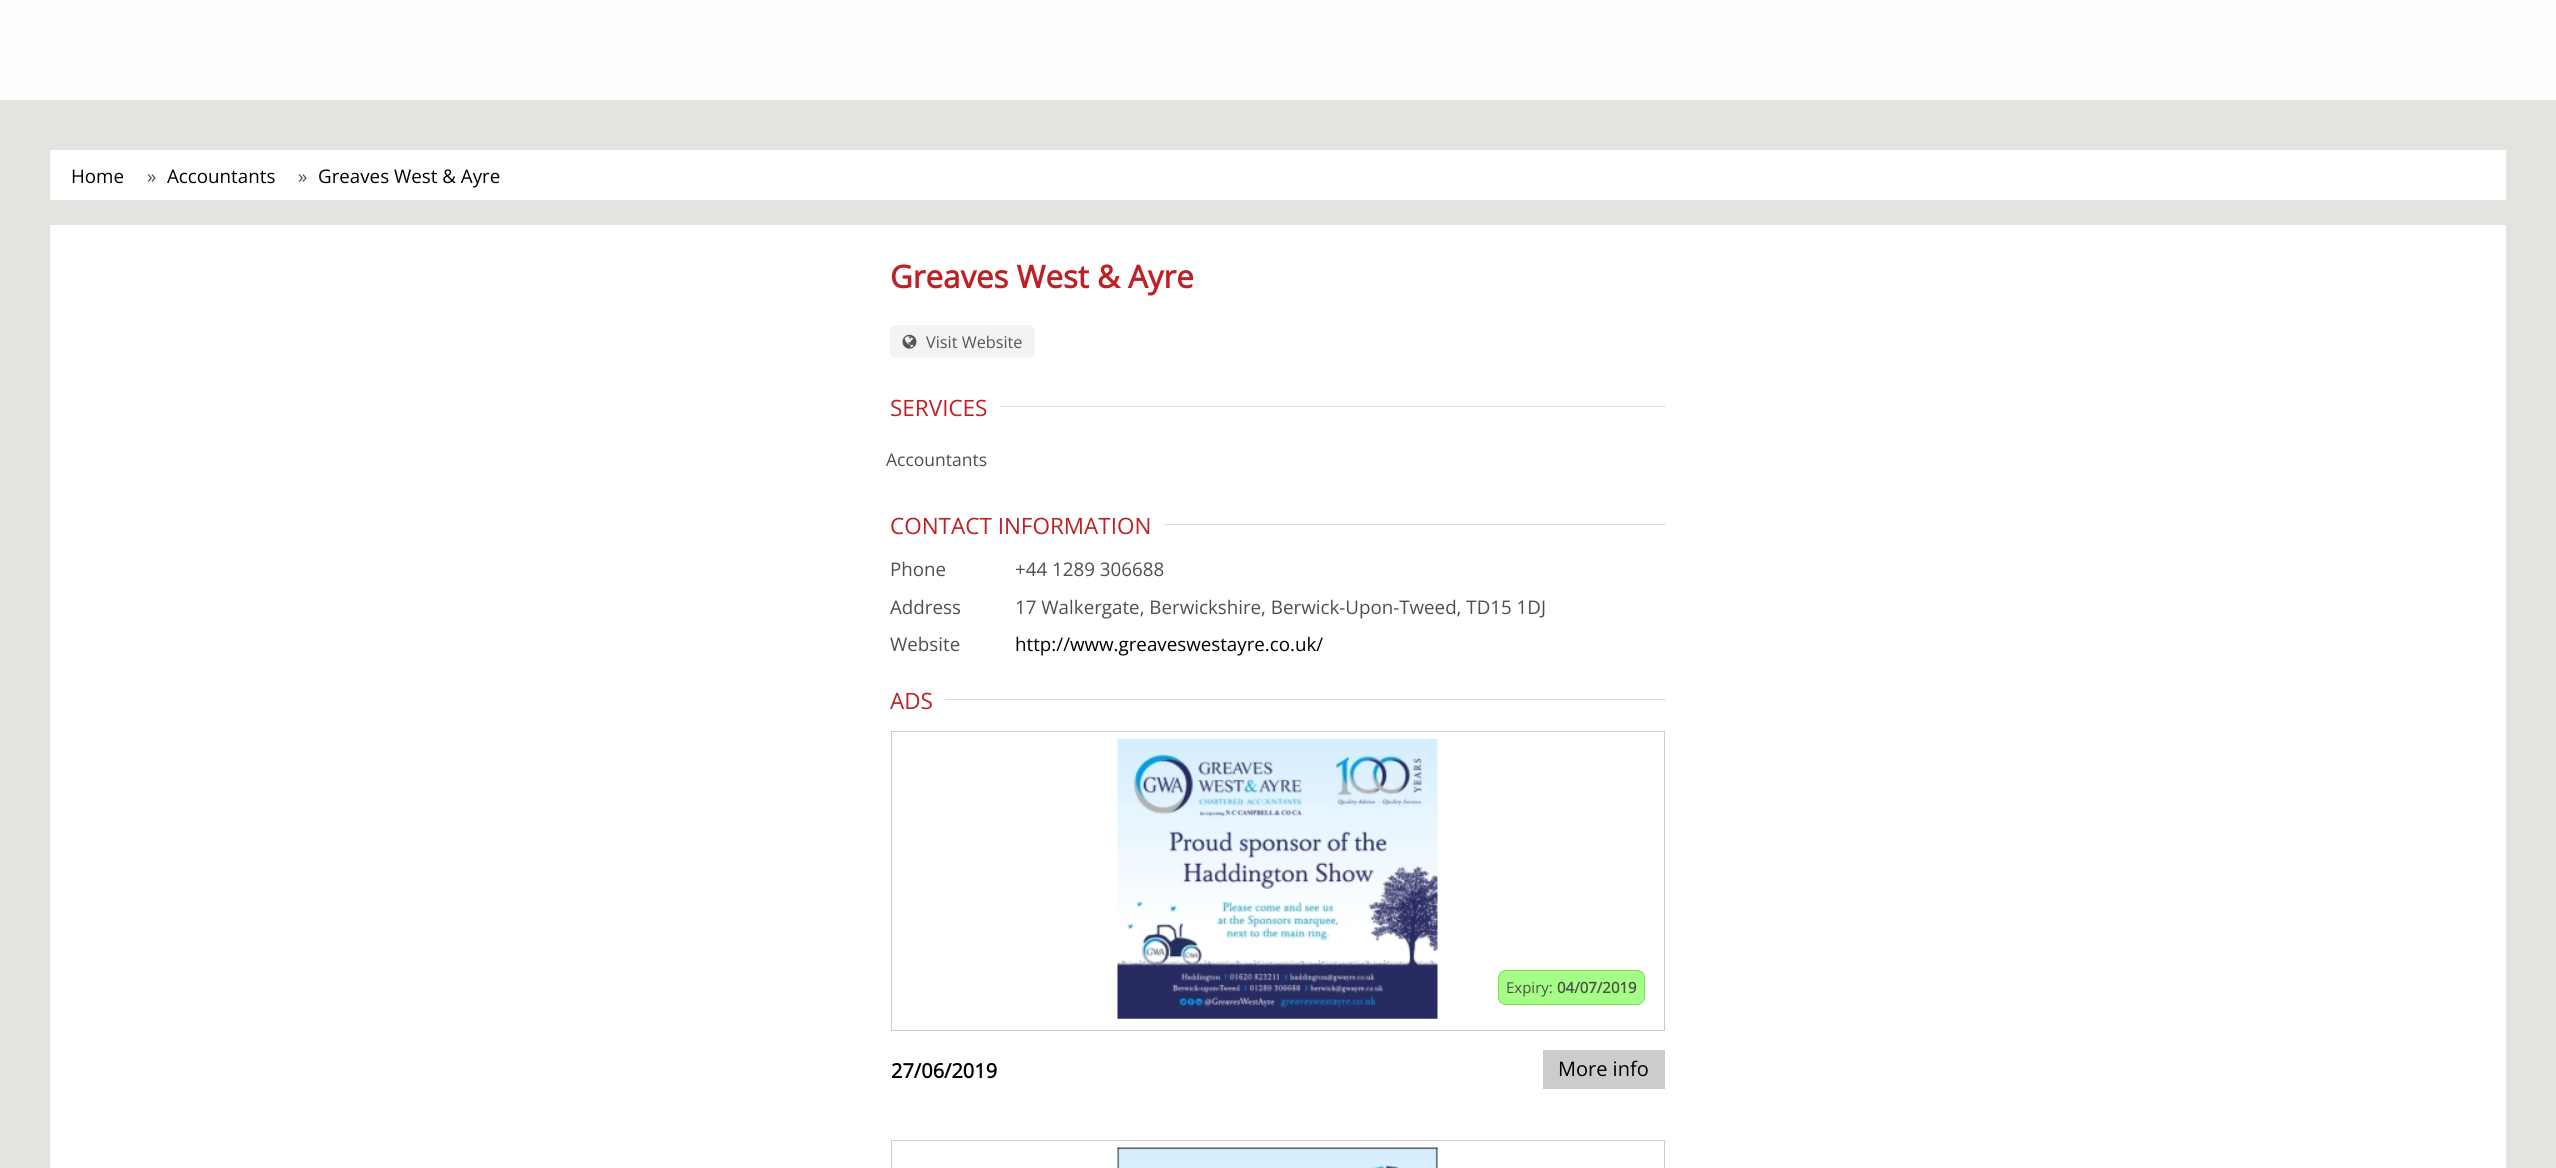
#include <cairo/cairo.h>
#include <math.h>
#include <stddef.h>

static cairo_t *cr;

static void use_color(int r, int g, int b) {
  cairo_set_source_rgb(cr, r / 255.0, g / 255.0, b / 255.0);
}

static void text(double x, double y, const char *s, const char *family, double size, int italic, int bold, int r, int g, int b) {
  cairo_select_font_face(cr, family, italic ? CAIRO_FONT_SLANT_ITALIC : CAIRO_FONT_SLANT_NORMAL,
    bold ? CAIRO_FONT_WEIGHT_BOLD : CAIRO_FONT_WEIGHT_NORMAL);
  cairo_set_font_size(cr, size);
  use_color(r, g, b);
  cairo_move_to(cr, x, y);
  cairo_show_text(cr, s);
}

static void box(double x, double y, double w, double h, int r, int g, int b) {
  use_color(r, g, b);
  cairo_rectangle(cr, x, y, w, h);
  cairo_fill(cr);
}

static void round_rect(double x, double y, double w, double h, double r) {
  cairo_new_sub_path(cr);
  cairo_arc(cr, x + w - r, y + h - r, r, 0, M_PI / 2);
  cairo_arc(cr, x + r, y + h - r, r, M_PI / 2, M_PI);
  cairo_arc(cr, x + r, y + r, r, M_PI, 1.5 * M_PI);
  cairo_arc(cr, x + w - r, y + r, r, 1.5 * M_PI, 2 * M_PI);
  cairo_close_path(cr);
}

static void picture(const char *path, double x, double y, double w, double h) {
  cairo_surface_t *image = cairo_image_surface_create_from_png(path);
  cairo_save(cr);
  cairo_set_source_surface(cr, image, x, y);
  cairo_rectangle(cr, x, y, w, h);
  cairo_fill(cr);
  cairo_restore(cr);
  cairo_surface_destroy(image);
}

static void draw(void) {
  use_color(229, 227, 223);
  cairo_paint(cr);
  box(0, 0, 2556, 100, 253, 253, 253);
  box(50, 150, 2456, 50, 255, 255, 255);
  box(50, 225, 2456, 943, 255, 255, 255);
  use_color(243, 243, 243);
  round_rect(890, 325, 145, 33, 6);
  cairo_fill(cr);
  picture("img_01.png", 902, 334, 15, 15);
  box(1000, 406, 666, 1, 220, 220, 220);
  box(1164, 524, 502, 1, 220, 220, 220);
  box(945, 699, 721, 1, 220, 220, 220);
  cairo_rectangle(cr, 891.5, 731.5, 773, 299);
  use_color(204, 204, 204);
  cairo_set_line_width(cr, 1);
  cairo_stroke(cr);
  picture("img_02.png", 1117, 738, 321, 281);
  use_color(165, 255, 135);
  round_rect(1498.5, 970.5, 146, 34, 7.5);
  cairo_fill_preserve(cr);
  use_color(114, 226, 76);
  cairo_stroke(cr);
  box(1543, 1050, 122, 39, 204, 204, 204);
  cairo_rectangle(cr, 891.5, 1140.5, 773, 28);
  cairo_stroke(cr);
  picture("img_03.png", 1117, 1147, 321, 21);
  text(71, 183, "Home", "Open Sans", 18.75, 0, 0, 0, 0, 0);
  text(147, 183, "»", "Open Sans", 18.75, 0, 0, 78, 78, 78);
  text(167, 183, "Accountants", "Open Sans", 18.75, 0, 0, 0, 0, 0);
  text(298, 183, "»", "Open Sans", 18.75, 0, 0, 78, 78, 78);
  text(318, 183, "Greaves West & Ayre", "Open Sans", 18.75, 0, 0, 0, 0, 0);
  text(890, 288, "Greaves West & Ayre", "Open Sans", 31.25, 0, 1, 189, 33, 37);
  text(926, 348, "Visit Website", "Open Sans", 16.25, 0, 0, 85, 85, 85);
  text(890, 416, "SERVICES", "Open Sans", 22.5, 0, 0, 189, 33, 37);
  text(886, 466, "Accountants", "Open Sans", 17.5, 0, 0, 78, 78, 78);
  text(890, 534, "CONTACT INFORMATION", "Open Sans", 22.5, 0, 0, 189, 33, 37);
  text(890, 576, "Phone", "Open Sans", 18.75, 0, 0, 78, 78, 78);
  text(1015, 576, "+44 1289 306688", "Open Sans", 18.75, 0, 0, 78, 78, 78);
  text(890, 614, "Address", "Open Sans", 18.75, 0, 0, 78, 78, 78);
  text(1015, 614, "17 Walkergate, Berwickshire, Berwick-Upon-Tweed, TD15 1DJ", "Open Sans", 18.75, 0, 0, 78, 78, 78);
  text(890, 651, "Website", "Open Sans", 18.75, 0, 0, 78, 78, 78);
  text(1015, 651, "http://www.greaveswestayre.co.uk/", "Open Sans", 18.75, 0, 0, 0, 0, 0);
  text(890, 709, "ADS", "Open Sans", 22.5, 0, 0, 189, 33, 37);
  text(1506, 993, "Expiry:", "Open Sans", 15, 0, 0, 78, 78, 78);
  text(1557, 993, "04/07/2019", "Open Sans", 15, 0, 1, 78, 78, 78);
  text(891, 1078, "27/06/2019", "Open Sans", 20, 0, 1, 0, 0, 0);
  text(1558, 1076, "More info", "Open Sans", 20, 0, 0, 0, 0, 0);
}

int main(void) {
  cairo_surface_t *surface = cairo_image_surface_create(CAIRO_FORMAT_RGB24, 2556, 1168);
  cr = cairo_create(surface);
  cairo_font_options_t *options = cairo_font_options_create();
  cairo_font_options_set_hint_metrics(options, CAIRO_HINT_METRICS_OFF);
  cairo_font_options_set_hint_style(options, CAIRO_HINT_STYLE_NONE);
  cairo_set_font_options(cr, options);
  cairo_set_miter_limit(cr, 4);
  draw();
  cairo_surface_write_to_png(surface, "out.png");
  cairo_font_options_destroy(options);
  cairo_destroy(cr);
  cairo_surface_destroy(surface);
  return 0;
}
